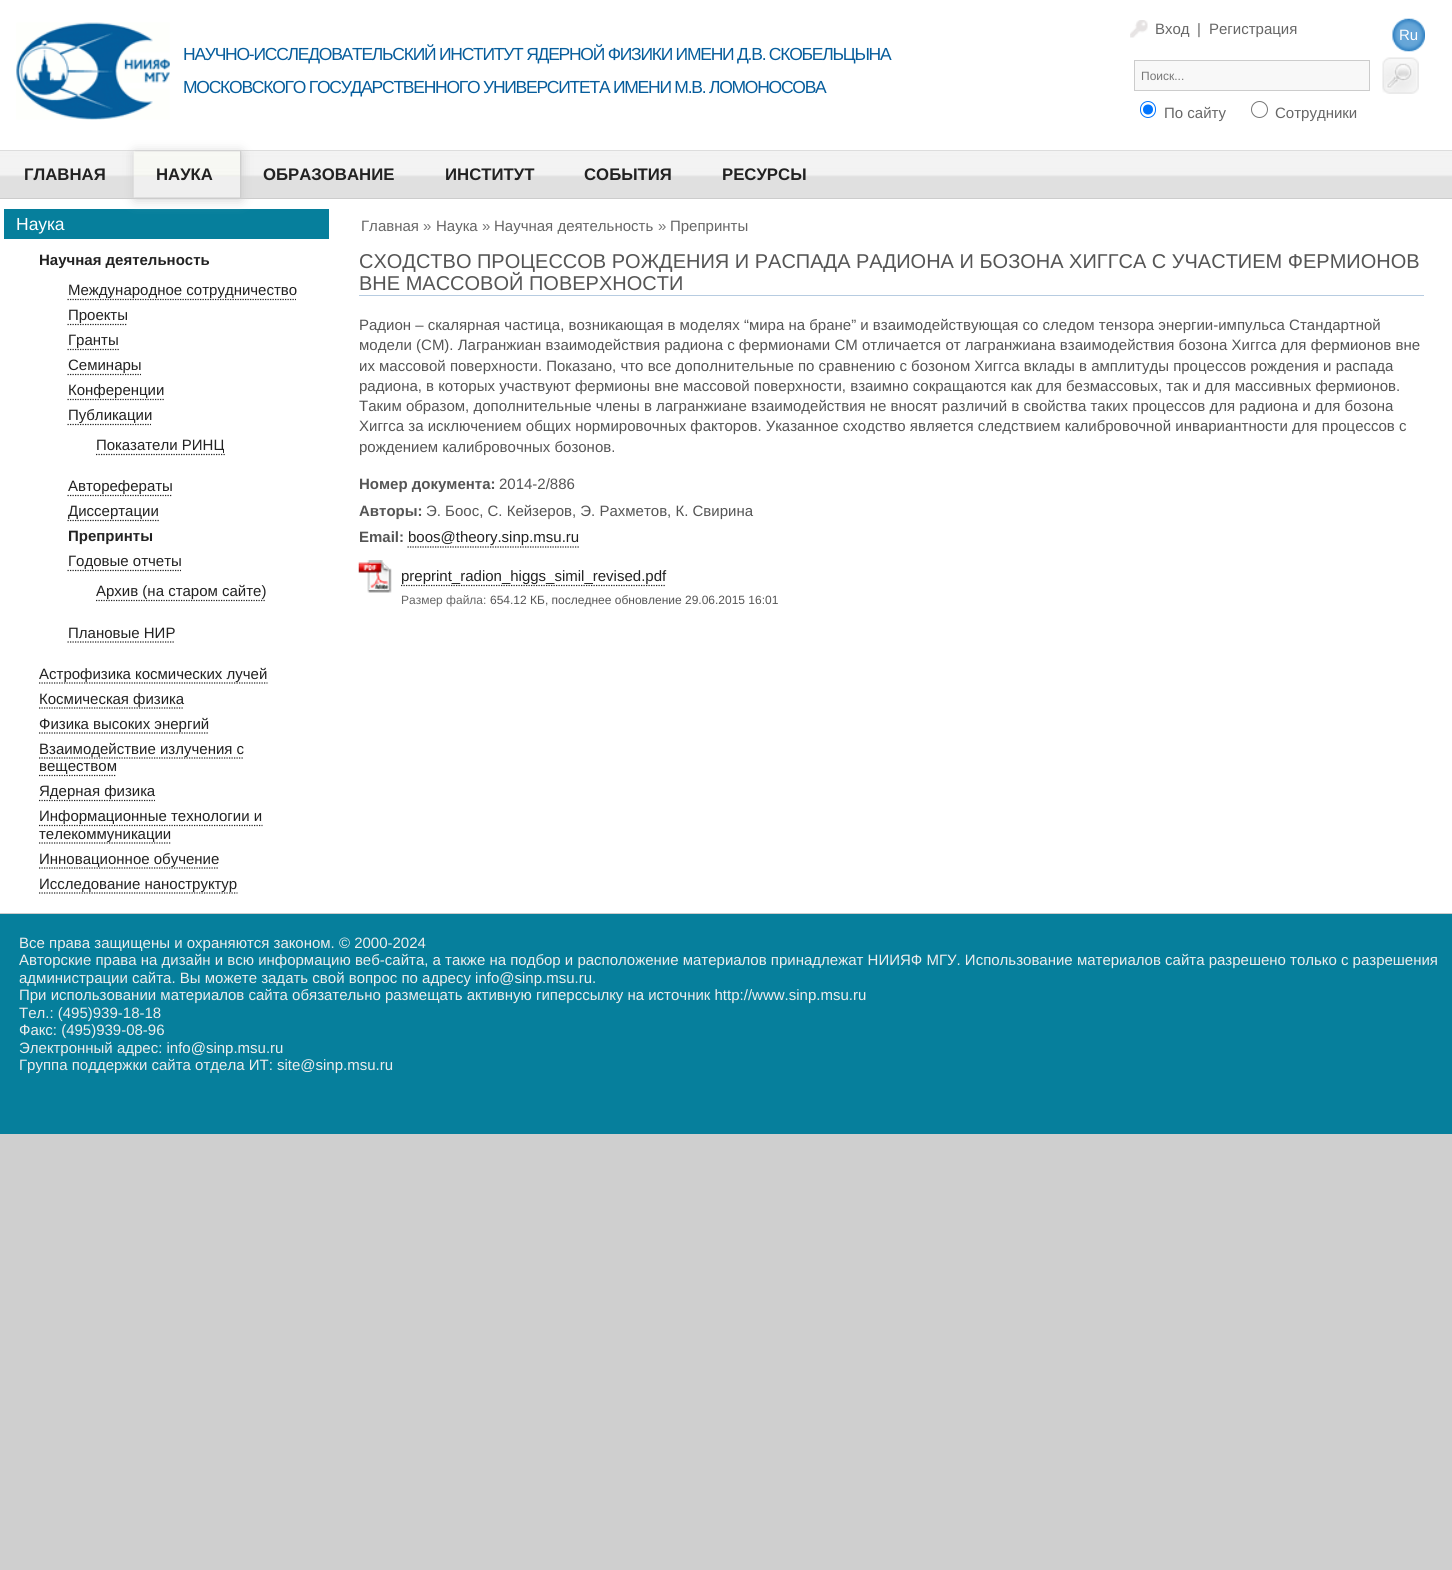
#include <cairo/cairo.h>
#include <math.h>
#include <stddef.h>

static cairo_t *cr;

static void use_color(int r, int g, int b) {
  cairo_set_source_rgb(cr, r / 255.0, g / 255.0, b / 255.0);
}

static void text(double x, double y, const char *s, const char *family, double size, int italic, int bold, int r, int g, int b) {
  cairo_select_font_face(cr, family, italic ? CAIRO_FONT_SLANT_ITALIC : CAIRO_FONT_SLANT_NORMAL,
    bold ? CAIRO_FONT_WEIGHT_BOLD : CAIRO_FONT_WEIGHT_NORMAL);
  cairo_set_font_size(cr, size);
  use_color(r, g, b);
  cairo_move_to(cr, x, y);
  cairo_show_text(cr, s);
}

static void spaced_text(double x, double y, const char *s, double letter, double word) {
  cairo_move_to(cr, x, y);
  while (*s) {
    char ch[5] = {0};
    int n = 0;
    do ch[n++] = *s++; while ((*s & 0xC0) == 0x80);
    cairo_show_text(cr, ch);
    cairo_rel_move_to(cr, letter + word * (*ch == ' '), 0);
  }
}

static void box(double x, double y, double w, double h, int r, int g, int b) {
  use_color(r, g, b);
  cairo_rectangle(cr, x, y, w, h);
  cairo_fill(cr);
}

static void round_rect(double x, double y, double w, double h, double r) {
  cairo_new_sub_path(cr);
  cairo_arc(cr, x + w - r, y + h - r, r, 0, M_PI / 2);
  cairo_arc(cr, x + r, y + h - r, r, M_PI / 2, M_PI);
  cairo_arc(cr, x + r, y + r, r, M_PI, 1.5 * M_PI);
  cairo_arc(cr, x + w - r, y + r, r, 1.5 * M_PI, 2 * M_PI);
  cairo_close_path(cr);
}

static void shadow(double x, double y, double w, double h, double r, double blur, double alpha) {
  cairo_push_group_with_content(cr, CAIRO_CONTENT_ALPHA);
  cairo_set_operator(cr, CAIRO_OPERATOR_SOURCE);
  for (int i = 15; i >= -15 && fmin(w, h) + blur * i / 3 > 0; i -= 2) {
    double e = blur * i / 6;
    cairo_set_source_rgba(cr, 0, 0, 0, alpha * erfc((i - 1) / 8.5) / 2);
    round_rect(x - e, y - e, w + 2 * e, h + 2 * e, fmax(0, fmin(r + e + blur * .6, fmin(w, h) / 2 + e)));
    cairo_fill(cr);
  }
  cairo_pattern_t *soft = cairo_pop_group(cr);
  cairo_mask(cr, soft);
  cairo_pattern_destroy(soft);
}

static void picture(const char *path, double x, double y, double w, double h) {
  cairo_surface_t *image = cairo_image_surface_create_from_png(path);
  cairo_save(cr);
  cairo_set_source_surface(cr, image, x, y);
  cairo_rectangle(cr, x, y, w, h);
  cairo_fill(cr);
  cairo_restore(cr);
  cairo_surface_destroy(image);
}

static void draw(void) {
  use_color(207, 207, 207);
  cairo_paint(cr);
  box(0, 0, 1452, 913, 255, 255, 255);
  picture("img_01.png", 16, 22, 154, 98);
  picture("img_02.png", 1130, 20, 18, 18);
  picture("img_03.png", 1392, 18, 33, 34);
  use_color(248, 248, 248);
  cairo_rectangle(cr, 1134.5, 60.5, 235, 30);
  cairo_fill_preserve(cr);
  use_color(204, 204, 204);
  cairo_set_line_width(cr, 1);
  cairo_stroke(cr);
  picture("img_04.png", 1382, 57, 37, 37);
  round_rect(1140.5, 101.5, 15, 16, 7.5);
  use_color(0, 117, 255);
  cairo_stroke(cr);
  cairo_arc(cr, 1148, 109.5, 5, 0, 2 * M_PI);
  cairo_fill(cr);
  cairo_arc(cr, 1259.5, 109.5, 8, 0, 2 * M_PI);
  use_color(118, 118, 118);
  cairo_stroke(cr);
  picture("img_05.png", 0, 151, 1452, 47);
  box(0, 150, 1452, 1, 221, 221, 221);
  box(0, 198, 1452, 1, 204, 204, 204);
  use_color(204, 204, 204);
  shadow(135, 151, 106, 47, 0, 0.5, 1);
  box(4, 209, 325, 30, 6, 127, 156);
  use_color(204, 204, 204);
  shadow(135, 153, 106, 46, 0, 6, 1);
  picture("img_06.png", 133, 151, 107, 47);
  cairo_new_path(cr);
  cairo_move_to(cr, 67.5, 299.5);
  cairo_line_to(cr, 296, 299.5);
  use_color(34, 34, 34);
  cairo_set_line_width(cr, 1.2);
  cairo_set_dash(cr, (double[]){1.25, 1.25}, 2, 0);
  cairo_stroke(cr);
  cairo_new_path(cr);
  cairo_move_to(cr, 67.5, 324.5);
  cairo_line_to(cr, 127.5, 324.5);
  cairo_stroke(cr);
  cairo_new_path(cr);
  cairo_move_to(cr, 67.5, 349.5);
  cairo_line_to(cr, 119, 349.5);
  cairo_stroke(cr);
  cairo_new_path(cr);
  cairo_move_to(cr, 67.5, 374.5);
  cairo_line_to(cr, 141, 374.5);
  cairo_stroke(cr);
  cairo_new_path(cr);
  cairo_move_to(cr, 67.5, 399.5);
  cairo_line_to(cr, 164, 399.5);
  cairo_stroke(cr);
  cairo_new_path(cr);
  cairo_move_to(cr, 67.5, 424.5);
  cairo_line_to(cr, 151, 424.5);
  cairo_stroke(cr);
  cairo_new_path(cr);
  cairo_move_to(cr, 96, 454.5);
  cairo_line_to(cr, 225, 454.5);
  cairo_stroke(cr);
  cairo_new_path(cr);
  cairo_move_to(cr, 67.5, 495.5);
  cairo_line_to(cr, 172.5, 495.5);
  cairo_stroke(cr);
  cairo_new_path(cr);
  cairo_move_to(cr, 67.5, 520.5);
  cairo_line_to(cr, 159, 520.5);
  cairo_stroke(cr);
  cairo_new_path(cr);
  cairo_move_to(cr, 67.5, 570.5);
  cairo_line_to(cr, 181, 570.5);
  cairo_stroke(cr);
  cairo_new_path(cr);
  cairo_move_to(cr, 96, 600.5);
  cairo_line_to(cr, 266, 600.5);
  cairo_stroke(cr);
  cairo_new_path(cr);
  cairo_move_to(cr, 67.5, 642);
  cairo_line_to(cr, 175, 642);
  cairo_stroke(cr);
  cairo_new_path(cr);
  cairo_move_to(cr, 39, 683);
  cairo_line_to(cr, 267.5, 683);
  cairo_stroke(cr);
  cairo_new_path(cr);
  cairo_move_to(cr, 39, 708);
  cairo_line_to(cr, 184, 708);
  cairo_stroke(cr);
  cairo_new_path(cr);
  cairo_move_to(cr, 39, 733);
  cairo_line_to(cr, 209, 733);
  cairo_stroke(cr);
  cairo_new_path(cr);
  cairo_move_to(cr, 39, 758);
  cairo_line_to(cr, 244, 758);
  cairo_stroke(cr);
  cairo_new_path(cr);
  cairo_move_to(cr, 39, 775.5);
  cairo_line_to(cr, 116, 775.5);
  cairo_stroke(cr);
  cairo_new_path(cr);
  cairo_move_to(cr, 39, 800.5);
  cairo_line_to(cr, 155, 800.5);
  cairo_stroke(cr);
  cairo_new_path(cr);
  cairo_move_to(cr, 39, 825.5);
  cairo_line_to(cr, 262.5, 825.5);
  cairo_stroke(cr);
  cairo_new_path(cr);
  cairo_move_to(cr, 39, 843);
  cairo_line_to(cr, 171, 843);
  cairo_stroke(cr);
  cairo_new_path(cr);
  cairo_move_to(cr, 39, 868);
  cairo_line_to(cr, 219, 868);
  cairo_stroke(cr);
  cairo_new_path(cr);
  cairo_move_to(cr, 39, 893);
  cairo_line_to(cr, 237.5, 893);
  cairo_stroke(cr);
  box(359, 295, 1065, 1, 183, 204, 225);
  cairo_new_path(cr);
  cairo_move_to(cr, 407.5, 547);
  cairo_line_to(cr, 579, 547);
  use_color(34, 34, 34);
  cairo_stroke(cr);
  picture("img_07.png", 358, 560, 34, 33);
  cairo_new_path(cr);
  cairo_move_to(cr, 401, 585.5);
  cairo_line_to(cr, 666, 585.5);
  cairo_stroke(cr);
  box(0, 914, 1452, 220, 6, 127, 156);
  box(0, 913, 1452, 1, 204, 204, 204);
  text(1155, 34, "Вход", "Liberation Sans", 15, 0, 0, 102, 102, 102);
  text(1197, 34, "|", "Liberation Sans", 15, 0, 0, 102, 102, 102);
  text(1209, 34, "Регистрация", "Liberation Sans", 15, 0, 0, 102, 102, 102);
  text(1399, 40, "Ru", "Liberation Sans", 15, 0, 0, 255, 255, 255);
  cairo_set_font_size(cr, 17.5);
  use_color(6, 93, 156);
  spaced_text(183, 60, "НАУЧНО-ИССЛЕДОВАТЕЛЬСКИЙ ИНСТИТУТ ЯДЕРНОЙ ФИЗИКИ ИМЕНИ Д.В. СКОБЕЛЬЦЫНА", -1.25, 0);
  spaced_text(183, 93, "МОСКОВСКОГО ГОСУДАРСТВЕННОГО УНИВЕРСИТЕТА ИМЕНИ М.В. ЛОМОНОСОВА", -1.25, 0);
  text(1141, 80, "Поиск...", "Liberation Sans", 12, 0, 0, 119, 119, 119);
  text(1164, 118, "По сайту", "Liberation Sans", 15, 0, 0, 102, 102, 102);
  text(1275, 118, "Сотрудники", "Liberation Sans", 15, 0, 0, 102, 102, 102);
  text(24, 180, "ГЛАВНАЯ", "Liberation Sans", 16.75, 0, 1, 34, 34, 34);
  text(156, 180, "НАУКА", "Liberation Sans", 16.75, 0, 1, 34, 34, 34);
  text(263, 180, "ОБРАЗОВАНИЕ", "Liberation Sans", 16.75, 0, 1, 34, 34, 34);
  text(445, 180, "ИНСТИТУТ", "Liberation Sans", 16.75, 0, 1, 34, 34, 34);
  text(584, 180, "СОБЫТИЯ", "Liberation Sans", 16.75, 0, 1, 34, 34, 34);
  text(722, 180, "РЕСУРСЫ", "Liberation Sans", 16.75, 0, 1, 34, 34, 34);
  text(16, 230, "Наука", "Liberation Sans", 17.5, 0, 0, 255, 255, 255);
  text(39, 265, "Научная деятельность", "Liberation Sans", 15, 0, 1, 34, 34, 34);
  text(68, 295, "Международное сотрудничество", "Liberation Sans", 15, 0, 0, 34, 34, 34);
  text(68, 320, "Проекты", "Liberation Sans", 15, 0, 0, 34, 34, 34);
  text(68, 345, "Гранты", "Liberation Sans", 15, 0, 0, 34, 34, 34);
  text(68, 370, "Семинары", "Liberation Sans", 15, 0, 0, 34, 34, 34);
  text(68, 395, "Конференции", "Liberation Sans", 15, 0, 0, 34, 34, 34);
  text(68, 420, "Публикации", "Liberation Sans", 15, 0, 0, 34, 34, 34);
  text(96, 450, "Показатели РИНЦ", "Liberation Sans", 15, 0, 0, 34, 34, 34);
  text(68, 491, "Авторефераты", "Liberation Sans", 15, 0, 0, 34, 34, 34);
  text(68, 516, "Диссертации", "Liberation Sans", 15, 0, 0, 34, 34, 34);
  text(68, 541, "Препринты", "Liberation Sans", 15, 0, 1, 34, 34, 34);
  text(68, 566, "Годовые отчеты", "Liberation Sans", 15, 0, 0, 34, 34, 34);
  text(96, 596, "Архив (на старом сайте)", "Liberation Sans", 15, 0, 0, 34, 34, 34);
  text(68, 638, "Плановые НИР", "Liberation Sans", 15, 0, 0, 34, 34, 34);
  text(39, 679, "Астрофизика космических лучей", "Liberation Sans", 15, 0, 0, 34, 34, 34);
  text(39, 704, "Космическая физика", "Liberation Sans", 15, 0, 0, 34, 34, 34);
  text(39, 729, "Физика высоких энергий", "Liberation Sans", 15, 0, 0, 34, 34, 34);
  text(39, 754, "Взаимодействие излучения с", "Liberation Sans", 15, 0, 0, 34, 34, 34);
  text(39, 771, "веществом", "Liberation Sans", 15, 0, 0, 34, 34, 34);
  text(39, 796, "Ядерная физика", "Liberation Sans", 15, 0, 0, 34, 34, 34);
  text(39, 821, "Информационные технологии и", "Liberation Sans", 15, 0, 0, 34, 34, 34);
  text(39, 839, "телекоммуникации", "Liberation Sans", 15, 0, 0, 34, 34, 34);
  text(39, 864, "Инновационное обучение", "Liberation Sans", 15, 0, 0, 34, 34, 34);
  text(39, 889, "Исследование наноструктур", "Liberation Sans", 15, 0, 0, 34, 34, 34);
  text(361, 231, "Главная", "Liberation Sans", 15, 0, 0, 102, 102, 102);
  text(423, 231, "»", "Liberation Sans", 15, 0, 0, 119, 119, 119);
  text(436, 231, "Наука", "Liberation Sans", 15, 0, 0, 102, 102, 102);
  text(482, 231, "»", "Liberation Sans", 15, 0, 0, 119, 119, 119);
  text(494, 231, "Научная деятельность", "Liberation Sans", 15, 0, 0, 102, 102, 102);
  text(658, 231, "»", "Liberation Sans", 15, 0, 0, 119, 119, 119);
  text(670, 231, "Препринты", "Liberation Sans", 15, 0, 0, 102, 102, 102);
  text(359, 268, "СХОДСТВО ПРОЦЕССОВ РОЖДЕНИЯ И РАСПАДА РАДИОНА И БОЗОНА ХИГГСА С УЧАСТИЕМ ФЕРМИОНОВ", "Liberation Sans", 20, 0, 0, 85, 85, 85);
  text(359, 290, "ВНЕ МАССОВОЙ ПОВЕРХНОСТИ", "Liberation Sans", 20, 0, 0, 85, 85, 85);
  text(359, 330, "Радион – скалярная частица, возникающая в моделях “мира на бране” и взаимодействующая со следом тензора энергии-импульса Стандартной", "Liberation Sans", 15, 0, 0, 85, 85, 85);
  text(359, 350, "модели (СМ). Лагранжиан взаимодействия радиона с фермионами СМ отличается от лагранжиана взаимодействия бозона Хиггса для фермионов вне", "Liberation Sans", 15, 0, 0, 85, 85, 85);
  text(359, 371, "их массовой поверхности. Показано, что все дополнительные по сравнению с бозоном Хиггса вклады в амплитуды процессов рождения и распада", "Liberation Sans", 15, 0, 0, 85, 85, 85);
  text(359, 391, "радиона, в которых участвуют фермионы вне массовой поверхности, взаимно сокращаются как для безмассовых, так и для массивных фермионов.", "Liberation Sans", 15, 0, 0, 85, 85, 85);
  text(359, 411, "Таким образом, дополнительные члены в лагранжиане взаимодействия не вносят различий в свойства таких процессов для радиона и для бозона", "Liberation Sans", 15, 0, 0, 85, 85, 85);
  text(359, 431, "Хиггса за исключением общих нормировочных факторов. Указанное сходство является следствием калибровочной инвариантности для процессов с", "Liberation Sans", 15, 0, 0, 85, 85, 85);
  text(359, 452, "рождением калибровочных бозонов.", "Liberation Sans", 15, 0, 0, 85, 85, 85);
  text(359, 489, "Номер документа:", "Liberation Sans", 15, 0, 1, 85, 85, 85);
  text(499, 489, "2014-2/886", "Liberation Sans", 15, 0, 0, 85, 85, 85);
  text(359, 516, "Авторы:", "Liberation Sans", 15, 0, 1, 85, 85, 85);
  text(426, 516, "Э. Боос, С. Кейзеров, Э. Рахметов, К. Свирина", "Liberation Sans", 15, 0, 0, 85, 85, 85);
  text(359, 542, "Email:", "Liberation Sans", 15, 0, 1, 85, 85, 85);
  text(408, 542, "boos@theory.sinp.msu.ru", "Liberation Sans", 15, 0, 0, 34, 34, 34);
  text(401, 581, "preprint_radion_higgs_simil_revised.pdf", "Liberation Sans", 15, 0, 0, 34, 34, 34);
  text(401, 604, "Размер файла:", "Liberation Sans", 12, 0, 0, 102, 102, 102);
  text(490, 604, "654.12 КБ, последнее обновление 29.06.2015 16:01", "Liberation Sans", 12, 0, 0, 85, 85, 85);
  text(19, 948, "Все права защищены и охраняются законом. © 2000-2024", "Liberation Sans", 15, 0, 0, 238, 238, 238);
  text(19, 965, "Авторские права на дизайн и всю информацию веб-сайта, а также на подбор и расположение материалов принадлежат НИИЯФ МГУ. Использование материалов сайта разрешено только с разрешения", "Liberation Sans", 15, 0, 0, 238, 238, 238);
  text(19, 983, "администрации сайта. Вы можете задать свой вопрос по адресу info@sinp.msu.ru.", "Liberation Sans", 15, 0, 0, 238, 238, 238);
  text(19, 1000, "При использовании материалов сайта обязательно размещать активную гиперссылку на источник http://www.sinp.msu.ru", "Liberation Sans", 15, 0, 0, 238, 238, 238);
  text(19, 1018, "Тел.: (495)939-18-18", "Liberation Sans", 15, 0, 0, 238, 238, 238);
  text(19, 1035, "Факс: (495)939-08-96", "Liberation Sans", 15, 0, 0, 238, 238, 238);
  text(19, 1053, "Электронный адрес: info@sinp.msu.ru", "Liberation Sans", 15, 0, 0, 238, 238, 238);
  text(19, 1070, "Группа поддержки сайта отдела ИТ: site@sinp.msu.ru", "Liberation Sans", 15, 0, 0, 238, 238, 238);
}

int main(void) {
  cairo_surface_t *surface = cairo_image_surface_create(CAIRO_FORMAT_RGB24, 1452, 1570);
  cr = cairo_create(surface);
  cairo_font_options_t *options = cairo_font_options_create();
  cairo_font_options_set_hint_metrics(options, CAIRO_HINT_METRICS_OFF);
  cairo_font_options_set_hint_style(options, CAIRO_HINT_STYLE_NONE);
  cairo_set_font_options(cr, options);
  cairo_set_miter_limit(cr, 4);
  draw();
  cairo_surface_write_to_png(surface, "out.png");
  cairo_font_options_destroy(options);
  cairo_destroy(cr);
  cairo_surface_destroy(surface);
  return 0;
}
